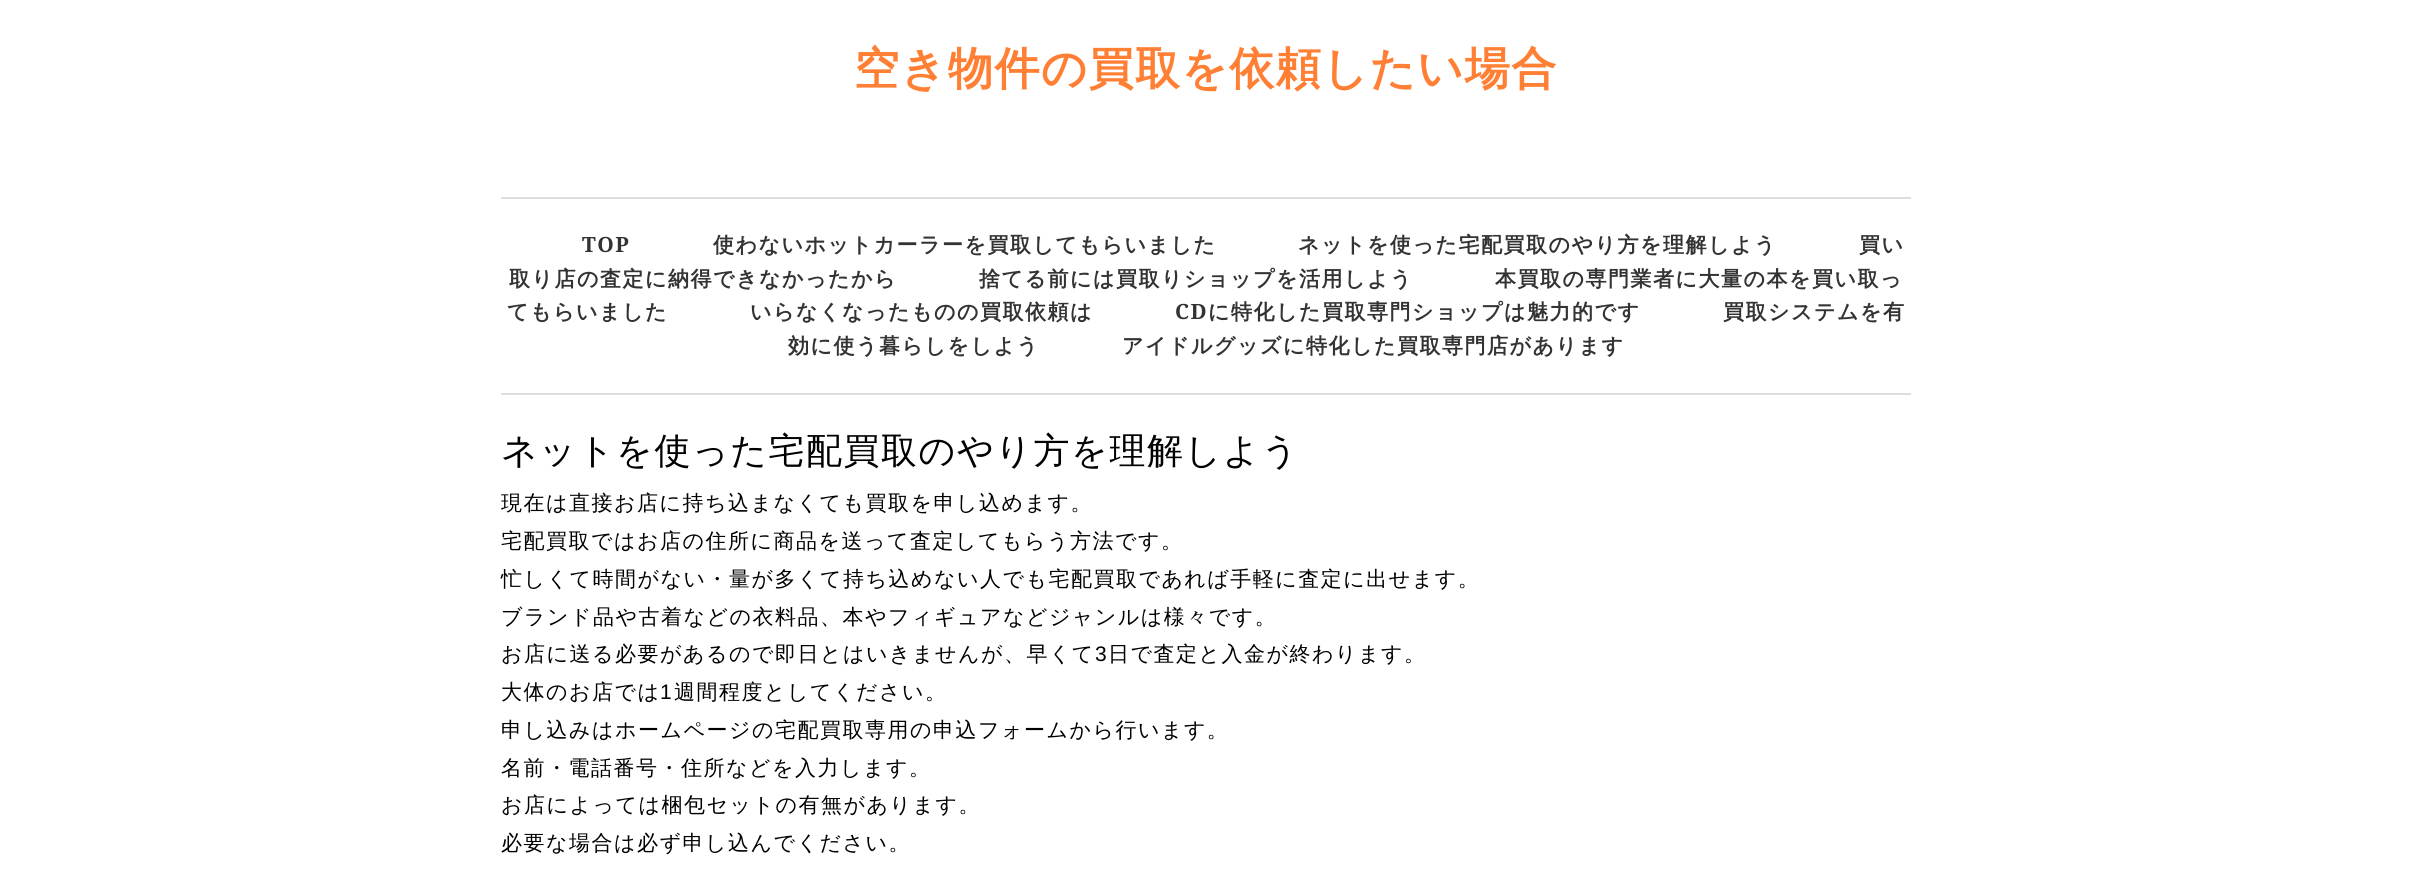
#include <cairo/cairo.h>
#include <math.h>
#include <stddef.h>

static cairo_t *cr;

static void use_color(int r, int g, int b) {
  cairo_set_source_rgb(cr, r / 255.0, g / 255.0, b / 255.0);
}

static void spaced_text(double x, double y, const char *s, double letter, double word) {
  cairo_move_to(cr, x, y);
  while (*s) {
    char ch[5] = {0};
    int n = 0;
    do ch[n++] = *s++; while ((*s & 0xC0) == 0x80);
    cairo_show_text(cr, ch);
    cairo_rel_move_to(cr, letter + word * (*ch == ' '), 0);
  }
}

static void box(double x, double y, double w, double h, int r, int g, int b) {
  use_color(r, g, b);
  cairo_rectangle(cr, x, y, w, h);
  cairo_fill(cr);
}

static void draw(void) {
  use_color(255, 255, 255);
  cairo_paint(cr);
  box(501, 197, 1410, 2, 221, 221, 221);
  box(501, 393, 1410, 2, 221, 221, 221);
  cairo_select_font_face(cr, "WenQuanYi Zen Hei", CAIRO_FONT_SLANT_NORMAL, CAIRO_FONT_WEIGHT_BOLD);
  cairo_set_font_size(cr, 45);
  use_color(255, 128, 52);
  spaced_text(854, 84, "空き物件の買取を依頼したい場合", 1.5, 0);
  cairo_select_font_face(cr, "Noto Serif", CAIRO_FONT_SLANT_NORMAL, CAIRO_FONT_WEIGHT_BOLD);
  cairo_set_font_size(cr, 21);
  use_color(51, 51, 51);
  spaced_text(582, 252, "TOP", 1.5, 0);
  cairo_select_font_face(cr, "WenQuanYi Zen Hei", CAIRO_FONT_SLANT_NORMAL, CAIRO_FONT_WEIGHT_BOLD);
  spaced_text(713, 252, "使わないホットカーラーを買取してもらいました", 1.5, 0);
  spaced_text(1298, 252, "ネットを使った宅配買取のやり方を理解しよう", 1.5, 0);
  spaced_text(1859, 252, "買い", 1.5, 0);
  spaced_text(509, 286, "取り店の査定に納得できなかったから", 1.5, 0);
  spaced_text(979, 286, "捨てる前には買取りショップを活用しよう", 1.5, 0);
  spaced_text(1495, 286, "本買取の専門業者に大量の本を買い取っ", 1.5, 0);
  spaced_text(507, 319, "てもらいました", 1.5, 0);
  spaced_text(750, 319, "いらなくなったものの買取依頼は", 1.5, 0);
  cairo_select_font_face(cr, "Noto Serif", CAIRO_FONT_SLANT_NORMAL, CAIRO_FONT_WEIGHT_BOLD);
  spaced_text(1175, 319, "CD", 1.5, 0);
  cairo_select_font_face(cr, "WenQuanYi Zen Hei", CAIRO_FONT_SLANT_NORMAL, CAIRO_FONT_WEIGHT_BOLD);
  spaced_text(1208, 319, "に特化した買取専門ショップは魅力的です", 1.5, 0);
  spaced_text(1723, 319, "買取システムを有", 1.5, 0);
  spaced_text(788, 353, "効に使う暮らしをしよう", 1.5, 0);
  spaced_text(1122, 353, "アイドルグッズに特化した買取専門店があります", 1.5, 0);
  cairo_select_font_face(cr, "WenQuanYi Zen Hei Medium", CAIRO_FONT_SLANT_NORMAL, CAIRO_FONT_WEIGHT_NORMAL);
  cairo_set_font_size(cr, 36);
  use_color(0, 0, 0);
  spaced_text(501, 463, "ネットを使った宅配買取のやり方を理解しよう", 1.5, 0);
  cairo_set_font_size(cr, 21);
  spaced_text(501, 510, "現在は直接お店に持ち込まなくても買取を申し込めます。", 1.5, 0);
  spaced_text(501, 548, "宅配買取ではお店の住所に商品を送って査定してもらう方法です。", 1.5, 0);
  spaced_text(501, 586, "忙しくて時間がない・量が多くて持ち込めない人でも宅配買取であれば手軽に査定に出せます。", 1.5, 0);
  spaced_text(501, 624, "ブランド品や古着などの衣料品、本やフィギュアなどジャンルは様々です。", 1.5, 0);
  spaced_text(501, 661, "お店に送る必要があるので即日とはいきませんが、早くて", 1.5, 0);
  cairo_select_font_face(cr, "Liberation Sans", CAIRO_FONT_SLANT_NORMAL, CAIRO_FONT_WEIGHT_NORMAL);
  spaced_text(1095, 661, "3", 1.5, 0);
  cairo_select_font_face(cr, "WenQuanYi Zen Hei Medium", CAIRO_FONT_SLANT_NORMAL, CAIRO_FONT_WEIGHT_NORMAL);
  spaced_text(1108, 661, "日で査定と入金が終わります。", 1.5, 0);
  spaced_text(501, 699, "大体のお店では", 1.5, 0);
  cairo_select_font_face(cr, "Liberation Sans", CAIRO_FONT_SLANT_NORMAL, CAIRO_FONT_WEIGHT_NORMAL);
  spaced_text(660, 699, "1", 1.5, 0);
  cairo_select_font_face(cr, "WenQuanYi Zen Hei Medium", CAIRO_FONT_SLANT_NORMAL, CAIRO_FONT_WEIGHT_NORMAL);
  spaced_text(674, 699, "週間程度としてください。", 1.5, 0);
  spaced_text(501, 737, "申し込みはホームページの宅配買取専用の申込フォームから行います。", 1.5, 0);
  spaced_text(501, 775, "名前・電話番号・住所などを入力します。", 1.5, 0);
  spaced_text(501, 812, "お店によっては梱包セットの有無があります。", 1.5, 0);
  spaced_text(501, 850, "必要な場合は必ず申し込んでください。", 1.5, 0);
}

int main(void) {
  cairo_surface_t *surface = cairo_image_surface_create(CAIRO_FORMAT_RGB24, 2411, 880);
  cr = cairo_create(surface);
  cairo_font_options_t *options = cairo_font_options_create();
  cairo_font_options_set_hint_metrics(options, CAIRO_HINT_METRICS_OFF);
  cairo_font_options_set_hint_style(options, CAIRO_HINT_STYLE_NONE);
  cairo_set_font_options(cr, options);
  cairo_set_miter_limit(cr, 4);
  draw();
  cairo_surface_write_to_png(surface, "out.png");
  cairo_font_options_destroy(options);
  cairo_destroy(cr);
  cairo_surface_destroy(surface);
  return 0;
}
